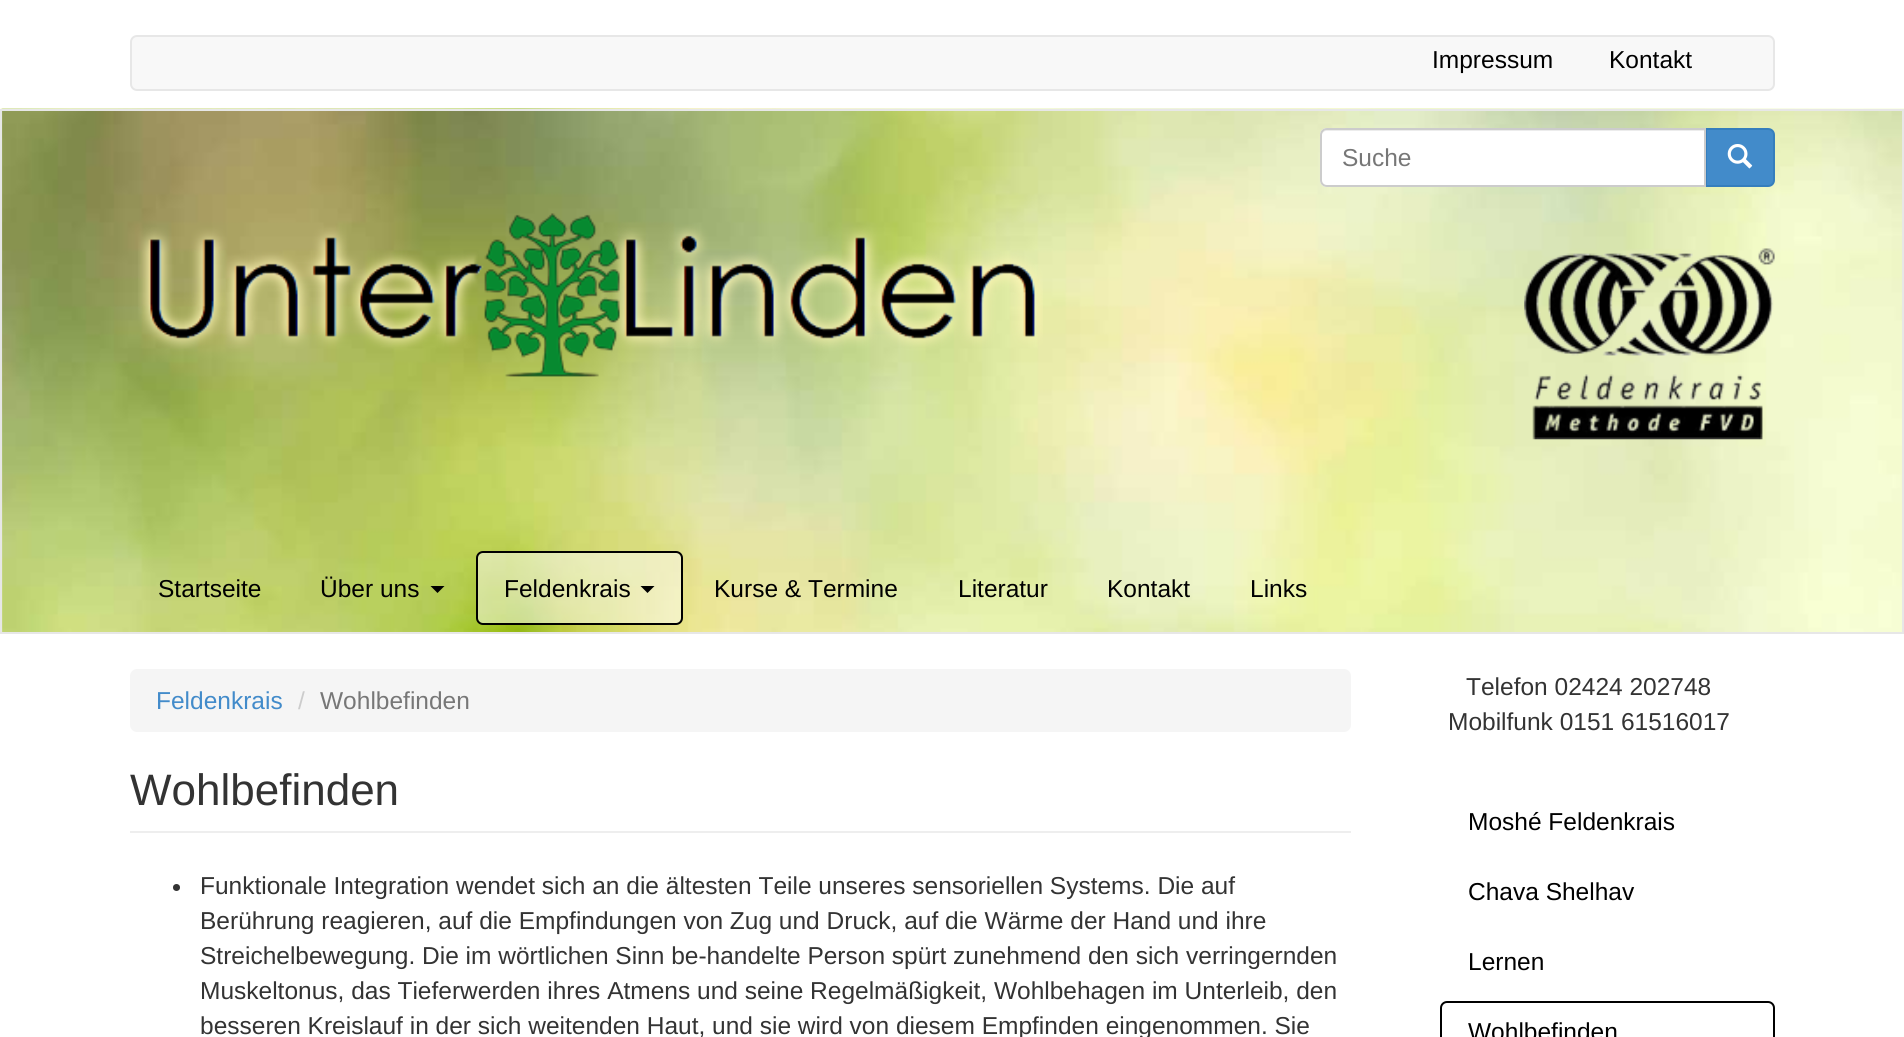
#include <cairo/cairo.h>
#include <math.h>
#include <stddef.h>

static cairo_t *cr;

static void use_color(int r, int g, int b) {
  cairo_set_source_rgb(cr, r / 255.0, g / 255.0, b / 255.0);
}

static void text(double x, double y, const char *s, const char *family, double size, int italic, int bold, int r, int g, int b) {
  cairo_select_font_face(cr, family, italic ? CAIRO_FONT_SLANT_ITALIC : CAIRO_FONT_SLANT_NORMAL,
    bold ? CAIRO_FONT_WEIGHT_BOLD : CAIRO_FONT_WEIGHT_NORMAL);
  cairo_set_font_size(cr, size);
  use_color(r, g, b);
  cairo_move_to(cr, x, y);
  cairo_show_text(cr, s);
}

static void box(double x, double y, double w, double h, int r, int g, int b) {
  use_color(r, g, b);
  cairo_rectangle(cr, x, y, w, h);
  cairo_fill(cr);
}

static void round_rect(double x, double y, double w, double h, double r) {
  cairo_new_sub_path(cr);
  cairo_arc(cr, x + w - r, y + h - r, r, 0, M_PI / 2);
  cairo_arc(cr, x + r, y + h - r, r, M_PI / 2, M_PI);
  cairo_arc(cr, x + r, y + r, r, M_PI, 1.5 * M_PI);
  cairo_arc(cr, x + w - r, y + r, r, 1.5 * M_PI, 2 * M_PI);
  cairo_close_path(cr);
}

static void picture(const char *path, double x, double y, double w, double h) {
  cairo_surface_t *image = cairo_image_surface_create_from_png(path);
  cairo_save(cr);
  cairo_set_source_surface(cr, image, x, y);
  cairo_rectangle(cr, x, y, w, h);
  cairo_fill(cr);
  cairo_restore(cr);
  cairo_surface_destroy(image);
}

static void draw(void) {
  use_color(255, 255, 255);
  cairo_paint(cr);
  use_color(248, 248, 248);
  round_rect(131, 36, 1643, 54, 6);
  cairo_fill_preserve(cr);
  use_color(231, 231, 231);
  cairo_stroke(cr);
  picture("img_01.png", 0, 108, 1904, 524);
  cairo_rectangle(cr, 1, 110, 1902, 523);
  cairo_stroke(cr);
  use_color(66, 139, 202);
  cairo_new_path(cr);
  cairo_move_to(cr, 1706, 129);
  cairo_line_to(cr, 1768, 129);
  cairo_curve_to(cr, 1771.5, 129, 1774, 131.5, 1774, 135);
  cairo_line_to(cr, 1774, 180);
  cairo_curve_to(cr, 1774, 183.5, 1771.5, 186, 1768, 186);
  cairo_line_to(cr, 1706, 186);
  cairo_close_path(cr);
  cairo_fill_preserve(cr);
  use_color(53, 126, 189);
  cairo_stroke(cr);
  use_color(255, 255, 255);
  cairo_new_path(cr);
  cairo_move_to(cr, 1327, 128);
  cairo_line_to(cr, 1706, 128);
  cairo_line_to(cr, 1706, 187);
  cairo_line_to(cr, 1327, 187);
  cairo_curve_to(cr, 1323, 187, 1320, 184, 1320, 180);
  cairo_line_to(cr, 1320, 135);
  cairo_curve_to(cr, 1320, 131, 1323, 128, 1327, 128);
  cairo_close_path(cr);
  cairo_fill(cr);
  use_color(236, 236, 236);
  cairo_new_path(cr);
  cairo_move_to(cr, 1326, 131);
  cairo_line_to(cr, 1704, 131);
  cairo_line_to(cr, 1704, 186);
  cairo_line_to(cr, 1705, 186);
  cairo_line_to(cr, 1705, 130);
  cairo_line_to(cr, 1326, 130);
  cairo_curve_to(cr, 1323, 130, 1321, 133, 1321, 136);
  cairo_curve_to(cr, 1321, 134, 1324, 131, 1326, 131);
  cairo_close_path(cr);
  cairo_fill(cr);
  cairo_new_path(cr);
  cairo_move_to(cr, 1327, 129);
  cairo_line_to(cr, 1705, 129);
  cairo_line_to(cr, 1705, 186);
  cairo_line_to(cr, 1327, 186);
  cairo_curve_to(cr, 1323.5, 186, 1321, 183.5, 1321, 180);
  cairo_line_to(cr, 1321, 135);
  cairo_curve_to(cr, 1321, 131.5, 1323.5, 129, 1327, 129);
  cairo_close_path(cr);
  use_color(204, 204, 204);
  cairo_stroke(cr);
  picture("img_02.png", 1727, 144, 26, 25);
  picture("img_03.png", 138, 213, 905, 164);
  picture("img_04.png", 1524, 248, 251, 192);
  use_color(0, 0, 0);
  cairo_new_path(cr);
  cairo_move_to(cr, 430.5, 586);
  cairo_line_to(cr, 444.5, 586);
  cairo_line_to(cr, 437.5, 593);
  cairo_close_path(cr);
  cairo_fill(cr);
  cairo_set_source_rgba(cr, 1, 1, 1, 0.5);
  round_rect(477, 552, 205, 72, 6);
  cairo_fill_preserve(cr);
  use_color(0, 0, 0);
  cairo_stroke(cr);
  cairo_new_path(cr);
  cairo_move_to(cr, 640.5, 586);
  cairo_line_to(cr, 654.5, 586);
  cairo_line_to(cr, 647.5, 593);
  cairo_close_path(cr);
  cairo_fill(cr);
  use_color(245, 245, 245);
  round_rect(130, 669, 1221, 63, 7);
  cairo_fill(cr);
  box(130, 831, 1221, 2, 238, 238, 238);
  use_color(51, 51, 51);
  cairo_arc(cr, 176.5, 887.5, 3.5, 0, 2 * M_PI);
  cairo_fill(cr);
  round_rect(1441, 1002, 333, 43, 6);
  use_color(0, 0, 0);
  cairo_stroke(cr);
  text(1432, 68, "Impressum", "Liberation Sans", 24.5, 0, 0, 0, 0, 0);
  text(1609, 68, "Kontakt", "Liberation Sans", 24.5, 0, 0, 0, 0, 0);
  text(1342, 166, "Suche", "Liberation Sans", 24.5, 0, 0, 119, 119, 119);
  text(158, 597, "Startseite", "Liberation Sans", 24.5, 0, 0, 0, 0, 0);
  text(320, 597, "Über uns", "Liberation Sans", 24.5, 0, 0, 0, 0, 0);
  text(504, 597, "Feldenkrais", "Liberation Sans", 24.5, 0, 0, 0, 0, 0);
  text(714, 597, "Kurse & Termine", "Liberation Sans", 24.5, 0, 0, 0, 0, 0);
  text(958, 597, "Literatur", "Liberation Sans", 24.5, 0, 0, 0, 0, 0);
  text(1107, 597, "Kontakt", "Liberation Sans", 24.5, 0, 0, 0, 0, 0);
  text(1250, 597, "Links", "Liberation Sans", 24.5, 0, 0, 0, 0, 0);
  text(156, 709, "Feldenkrais", "Liberation Sans", 24.5, 0, 0, 66, 139, 202);
  text(298, 709, "/", "Liberation Sans", 24.5, 0, 0, 204, 204, 204);
  text(320, 709, "Wohlbefinden", "Liberation Sans", 24.5, 0, 0, 119, 119, 119);
  text(130, 805, "Wohlbefinden", "Liberation Sans", 44, 0, 0, 51, 51, 51);
  text(200, 894, "Funktionale Integration wendet sich an die ältesten Teile unseres sensoriellen Systems. Die auf", "Liberation Sans", 24.5, 0, 0, 51, 51, 51);
  text(200, 929, "Berührung reagieren, auf die Empfindungen von Zug und Druck, auf die Wärme der Hand und ihre", "Liberation Sans", 24.5, 0, 0, 51, 51, 51);
  text(200, 964, "Streichelbewegung. Die im wörtlichen Sinn be-handelte Person spürt zunehmend den sich verringernden", "Liberation Sans", 24.5, 0, 0, 51, 51, 51);
  text(200, 999, "Muskeltonus, das Tieferwerden ihres Atmens und seine Regelmäßigkeit, Wohlbehagen im Unterleib, den", "Liberation Sans", 24.5, 0, 0, 51, 51, 51);
  text(200, 1034, "besseren Kreislauf in der sich weitenden Haut, und sie wird von diesem Empfinden eingenommen. Sie", "Liberation Sans", 24.5, 0, 0, 51, 51, 51);
  text(1466, 695, "Telefon 02424 202748", "Liberation Sans", 24.5, 0, 0, 51, 51, 51);
  text(1448, 730, "Mobilfunk 0151 61516017", "Liberation Sans", 24.5, 0, 0, 51, 51, 51);
  text(1468, 830, "Moshé Feldenkrais", "Liberation Sans", 24.5, 0, 0, 0, 0, 0);
  text(1468, 900, "Chava Shelhav", "Liberation Sans", 24.5, 0, 0, 0, 0, 0);
  text(1468, 970, "Lernen", "Liberation Sans", 24.5, 0, 0, 0, 0, 0);
  text(1468, 1040, "Wohlbefinden", "Liberation Sans", 24.5, 0, 0, 0, 0, 0);
}

int main(void) {
  cairo_surface_t *surface = cairo_image_surface_create(CAIRO_FORMAT_RGB24, 1904, 1037);
  cr = cairo_create(surface);
  cairo_font_options_t *options = cairo_font_options_create();
  cairo_font_options_set_hint_metrics(options, CAIRO_HINT_METRICS_OFF);
  cairo_font_options_set_hint_style(options, CAIRO_HINT_STYLE_NONE);
  cairo_set_font_options(cr, options);
  cairo_set_miter_limit(cr, 4);
  draw();
  cairo_surface_write_to_png(surface, "out.png");
  cairo_font_options_destroy(options);
  cairo_destroy(cr);
  cairo_surface_destroy(surface);
  return 0;
}
